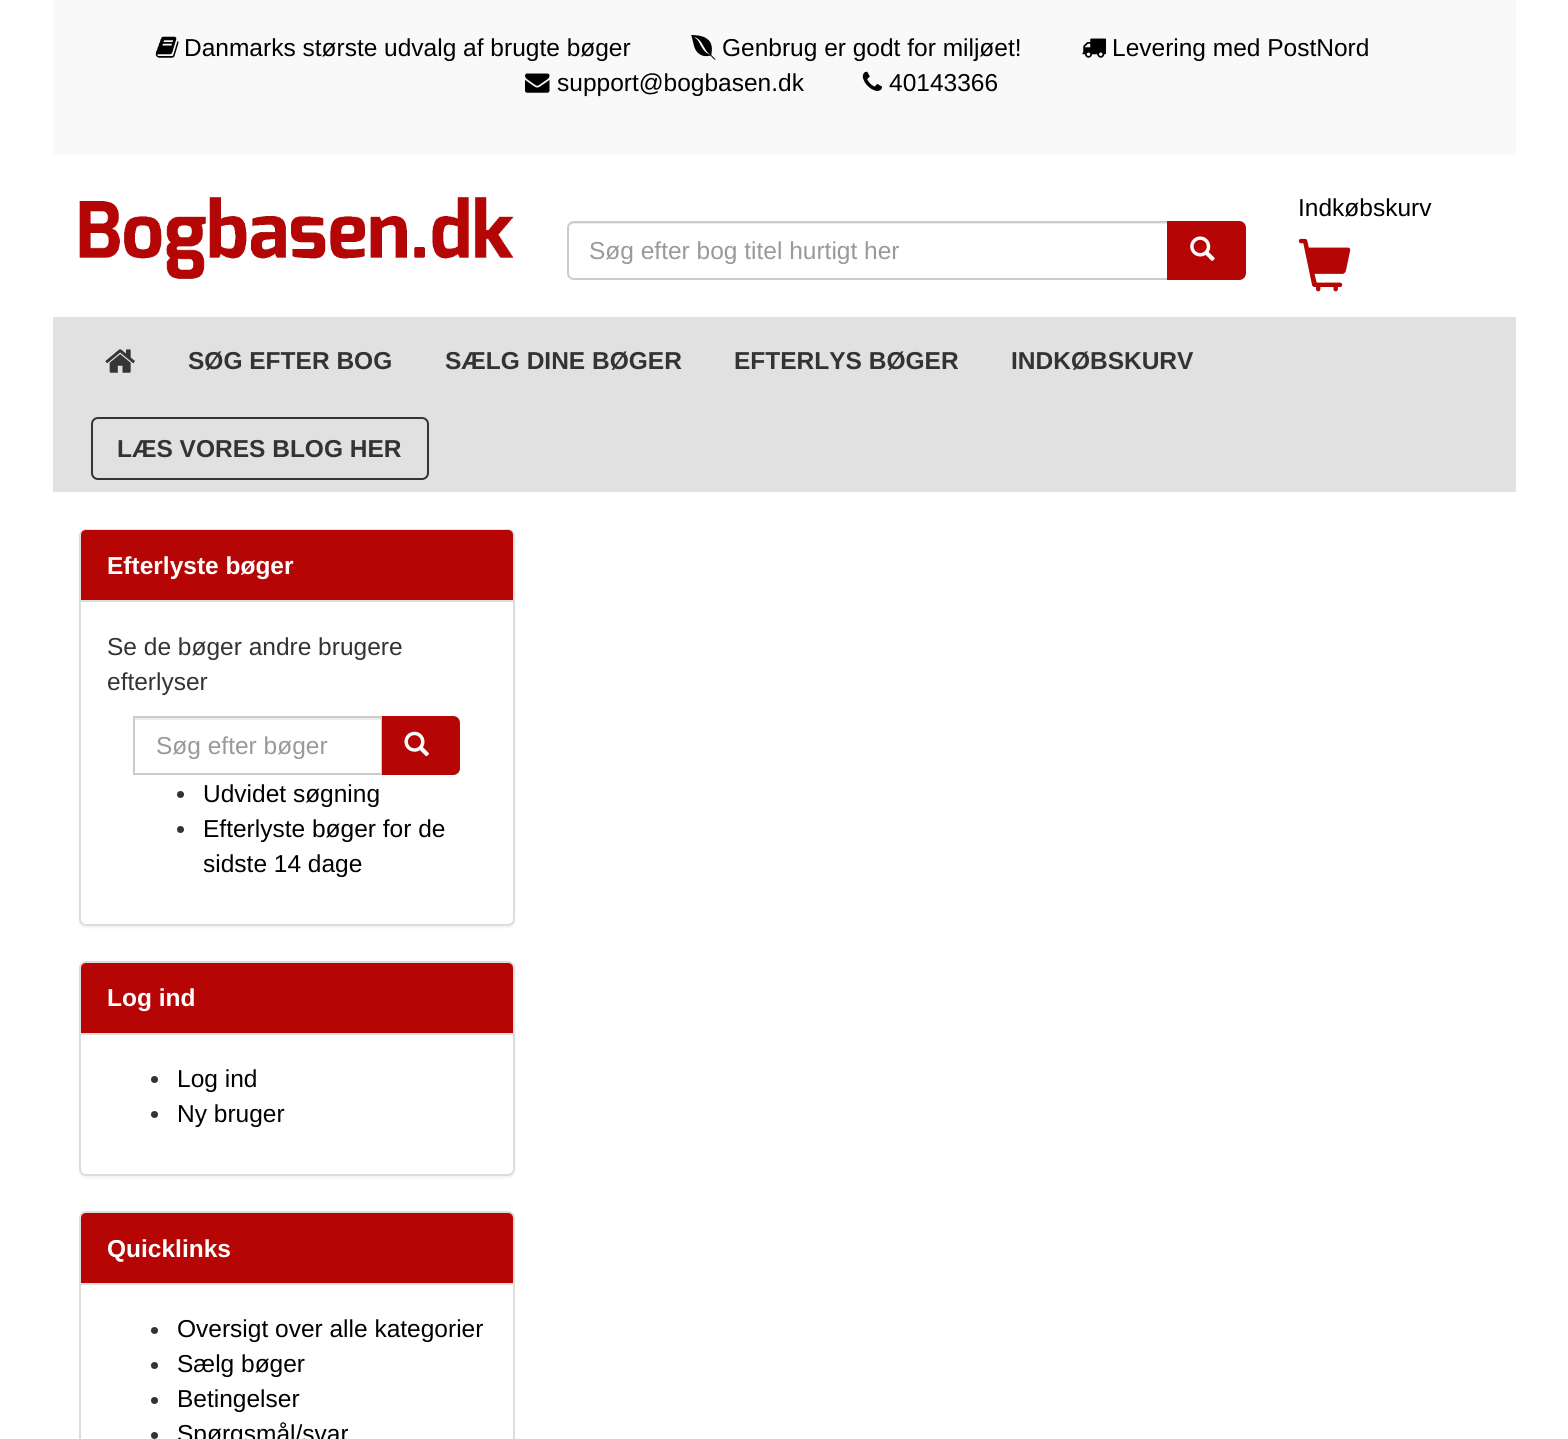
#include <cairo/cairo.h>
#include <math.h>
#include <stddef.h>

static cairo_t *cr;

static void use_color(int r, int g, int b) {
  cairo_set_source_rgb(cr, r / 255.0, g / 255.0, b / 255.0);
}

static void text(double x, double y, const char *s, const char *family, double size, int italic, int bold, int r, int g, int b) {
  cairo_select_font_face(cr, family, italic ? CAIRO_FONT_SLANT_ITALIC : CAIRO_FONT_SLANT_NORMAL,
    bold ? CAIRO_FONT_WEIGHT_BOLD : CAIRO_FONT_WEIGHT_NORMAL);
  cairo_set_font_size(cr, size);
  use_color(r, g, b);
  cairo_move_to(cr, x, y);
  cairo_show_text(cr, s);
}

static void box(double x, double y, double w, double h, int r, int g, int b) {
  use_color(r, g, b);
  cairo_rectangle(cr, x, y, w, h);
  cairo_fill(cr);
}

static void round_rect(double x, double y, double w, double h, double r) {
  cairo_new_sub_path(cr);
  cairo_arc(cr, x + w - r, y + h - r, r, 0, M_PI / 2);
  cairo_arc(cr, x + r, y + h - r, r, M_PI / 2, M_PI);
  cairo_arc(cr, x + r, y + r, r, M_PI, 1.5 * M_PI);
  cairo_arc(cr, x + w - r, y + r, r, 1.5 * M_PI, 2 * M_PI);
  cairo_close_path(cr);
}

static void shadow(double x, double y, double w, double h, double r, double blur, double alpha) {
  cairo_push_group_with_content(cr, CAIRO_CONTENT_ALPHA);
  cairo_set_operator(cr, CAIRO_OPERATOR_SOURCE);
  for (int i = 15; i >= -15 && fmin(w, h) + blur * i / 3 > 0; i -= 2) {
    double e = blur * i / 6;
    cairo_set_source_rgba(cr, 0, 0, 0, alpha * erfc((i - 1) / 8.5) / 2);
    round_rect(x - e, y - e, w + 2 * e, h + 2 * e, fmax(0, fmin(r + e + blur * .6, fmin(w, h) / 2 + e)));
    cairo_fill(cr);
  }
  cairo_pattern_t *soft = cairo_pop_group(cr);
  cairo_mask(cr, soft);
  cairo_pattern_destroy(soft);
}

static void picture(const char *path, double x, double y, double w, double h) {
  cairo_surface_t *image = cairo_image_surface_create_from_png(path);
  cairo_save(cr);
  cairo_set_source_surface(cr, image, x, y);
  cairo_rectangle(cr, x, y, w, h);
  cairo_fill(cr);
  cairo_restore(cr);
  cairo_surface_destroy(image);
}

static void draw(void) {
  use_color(255, 255, 255);
  cairo_paint(cr);
  box(53, 0, 1463, 154, 249, 249, 249);
  picture("img_01.png", 155, 36, 24, 22);
  picture("img_02.png", 691, 35, 25, 25);
  picture("img_03.png", 1082, 38, 24, 20);
  picture("img_04.png", 525, 73, 25, 20);
  picture("img_05.png", 862, 71, 20, 20);
  picture("img_06.png", 79, 197, 435, 82);
  picture("img_07.png", 1298, 238, 53, 54);
  use_color(236, 236, 236);
  cairo_new_path(cr);
  cairo_move_to(cr, 574, 224);
  cairo_line_to(cr, 1167, 224);
  cairo_line_to(cr, 1167, 222);
  cairo_line_to(cr, 574, 222);
  cairo_curve_to(cr, 570, 222, 569, 226, 569, 229);
  cairo_curve_to(cr, 569, 226, 571, 224, 574, 224);
  cairo_close_path(cr);
  cairo_fill(cr);
  cairo_new_path(cr);
  cairo_move_to(cr, 574, 222);
  cairo_line_to(cr, 1168, 222);
  cairo_line_to(cr, 1168, 279);
  cairo_line_to(cr, 574, 279);
  cairo_curve_to(cr, 570.5, 279, 568, 276.5, 568, 273);
  cairo_line_to(cr, 568, 228);
  cairo_curve_to(cr, 568, 224.5, 570.5, 222, 574, 222);
  cairo_close_path(cr);
  use_color(204, 204, 204);
  cairo_stroke(cr);
  use_color(181, 5, 5);
  cairo_new_path(cr);
  cairo_move_to(cr, 1168, 222);
  cairo_line_to(cr, 1239, 222);
  cairo_curve_to(cr, 1242.5, 222, 1245, 224.5, 1245, 228);
  cairo_line_to(cr, 1245, 273);
  cairo_curve_to(cr, 1245, 276.5, 1242.5, 279, 1239, 279);
  cairo_line_to(cr, 1168, 279);
  cairo_close_path(cr);
  cairo_fill_preserve(cr);
  cairo_stroke(cr);
  picture("img_08.png", 1190, 236, 25, 25);
  box(53, 317, 1463, 175, 225, 225, 225);
  picture("img_09.png", 105, 349, 30, 24);
  round_rect(92, 418, 336, 61, 6);
  use_color(53, 53, 53);
  cairo_stroke(cr);
  use_color(0, 0, 0);
  shadow(79, 530, 436, 398, 7, 1, 0.05);
  use_color(255, 255, 255);
  round_rect(80, 530, 434, 395, 6);
  cairo_fill_preserve(cr);
  use_color(221, 221, 221);
  cairo_stroke(cr);
  use_color(181, 5, 5);
  cairo_new_path(cr);
  cairo_move_to(cr, 86, 530);
  cairo_line_to(cr, 508, 530);
  cairo_curve_to(cr, 511, 530, 513, 532, 513, 535);
  cairo_line_to(cr, 513, 602);
  cairo_line_to(cr, 81, 602);
  cairo_line_to(cr, 81, 535);
  cairo_curve_to(cr, 81, 532, 83, 530, 86, 530);
  cairo_close_path(cr);
  cairo_fill(cr);
  box(81, 600, 432, 2, 221, 221, 221);
  box(135, 718, 247, 2, 236, 236, 236);
  cairo_rectangle(cr, 134, 717, 248, 57);
  use_color(204, 204, 204);
  cairo_stroke(cr);
  use_color(181, 5, 5);
  cairo_new_path(cr);
  cairo_move_to(cr, 383, 717);
  cairo_line_to(cr, 453, 717);
  cairo_curve_to(cr, 456.5, 717, 459, 719.5, 459, 723);
  cairo_line_to(cr, 459, 768);
  cairo_curve_to(cr, 459, 771.5, 456.5, 774, 453, 774);
  cairo_line_to(cr, 383, 774);
  cairo_close_path(cr);
  cairo_fill_preserve(cr);
  cairo_stroke(cr);
  picture("img_10.png", 404, 731, 25, 26);
  use_color(51, 51, 51);
  cairo_arc(cr, 180.5, 794.5, 3.5, 0, 2 * M_PI);
  cairo_fill(cr);
  cairo_arc(cr, 180.5, 829.5, 3.5, 0, 2 * M_PI);
  cairo_fill(cr);
  use_color(0, 0, 0);
  shadow(79, 963, 436, 215, 7, 1, 0.05);
  use_color(255, 255, 255);
  round_rect(80, 962, 434, 213, 6);
  cairo_fill_preserve(cr);
  use_color(221, 221, 221);
  cairo_stroke(cr);
  use_color(181, 5, 5);
  cairo_new_path(cr);
  cairo_move_to(cr, 86, 963);
  cairo_line_to(cr, 508, 963);
  cairo_curve_to(cr, 511, 963, 513, 965, 513, 968);
  cairo_line_to(cr, 513, 1034);
  cairo_line_to(cr, 81, 1034);
  cairo_line_to(cr, 81, 968);
  cairo_curve_to(cr, 81, 965, 83, 963, 86, 963);
  cairo_close_path(cr);
  cairo_fill(cr);
  box(81, 1033, 432, 2, 221, 221, 221);
  use_color(51, 51, 51);
  cairo_arc(cr, 154.5, 1079.5, 3.5, 0, 2 * M_PI);
  cairo_fill(cr);
  cairo_arc(cr, 154.5, 1114.5, 3.5, 0, 2 * M_PI);
  cairo_fill(cr);
  round_rect(80, 1212, 434, 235, 6);
  use_color(221, 221, 221);
  cairo_stroke(cr);
  use_color(181, 5, 5);
  cairo_new_path(cr);
  cairo_move_to(cr, 86, 1213);
  cairo_line_to(cr, 508, 1213);
  cairo_curve_to(cr, 511, 1213, 513, 1215, 513, 1218);
  cairo_line_to(cr, 513, 1285);
  cairo_line_to(cr, 81, 1285);
  cairo_line_to(cr, 81, 1218);
  cairo_curve_to(cr, 81, 1215, 83, 1213, 86, 1213);
  cairo_close_path(cr);
  cairo_fill(cr);
  box(81, 1283, 432, 2, 221, 221, 221);
  use_color(51, 51, 51);
  cairo_arc(cr, 154.5, 1330.5, 3.5, 0, 2 * M_PI);
  cairo_fill(cr);
  cairo_arc(cr, 154.5, 1365.5, 3.5, 0, 2 * M_PI);
  cairo_fill(cr);
  cairo_arc(cr, 154.5, 1400.5, 3.5, 0, 2 * M_PI);
  cairo_fill(cr);
  cairo_arc(cr, 154.5, 1435.5, 3.5, 0, 2 * M_PI);
  cairo_fill(cr);
  text(184, 56, "Danmarks største udvalg af brugte bøger", "Liberation Sans", 24.5, 0, 0, 0, 0, 0);
  text(722, 56, "Genbrug er godt for miljøet!", "Liberation Sans", 24.5, 0, 0, 0, 0, 0);
  text(1112, 56, "Levering med PostNord", "Liberation Sans", 24.5, 0, 0, 0, 0, 0);
  text(557, 91, "support@bogbasen.dk", "Liberation Sans", 24.5, 0, 0, 0, 0, 0);
  text(889, 91, "40143366", "Liberation Sans", 24.5, 0, 0, 0, 0, 0);
  text(1298, 216, "Indkøbskurv", "Liberation Sans", 24.5, 0, 0, 0, 0, 0);
  text(589, 259, "Søg efter bog titel hurtigt her", "Liberation Sans", 24.5, 0, 0, 153, 153, 153);
  text(188, 369, "SØG EFTER BOG", "Liberation Sans", 24.5, 0, 1, 51, 51, 51);
  text(445, 369, "SÆLG DINE BØGER", "Liberation Sans", 24.5, 0, 1, 51, 51, 51);
  text(734, 369, "EFTERLYS BØGER", "Liberation Sans", 24.5, 0, 1, 51, 51, 51);
  text(1011, 369, "INDKØBSKURV", "Liberation Sans", 24.5, 0, 1, 51, 51, 51);
  text(117, 457, "LÆS VORES BLOG HER", "Liberation Sans", 24.5, 0, 1, 51, 51, 51);
  text(107, 574, "Efterlyste bøger", "Liberation Sans", 24.5, 0, 1, 255, 255, 255);
  text(107, 655, "Se de bøger andre brugere", "Liberation Sans", 24.5, 0, 0, 51, 51, 51);
  text(107, 690, "efterlyser", "Liberation Sans", 24.5, 0, 0, 51, 51, 51);
  text(156, 754, "Søg efter bøger", "Liberation Sans", 24.5, 0, 0, 153, 153, 153);
  text(203, 802, "Udvidet søgning", "Liberation Sans", 24.5, 0, 0, 0, 0, 0);
  text(203, 837, "Efterlyste bøger for de", "Liberation Sans", 24.5, 0, 0, 0, 0, 0);
  text(203, 872, "sidste 14 dage", "Liberation Sans", 24.5, 0, 0, 0, 0, 0);
  text(107, 1006, "Log ind", "Liberation Sans", 24.5, 0, 1, 255, 255, 255);
  text(177, 1087, "Log ind", "Liberation Sans", 24.5, 0, 0, 0, 0, 0);
  text(177, 1122, "Ny bruger", "Liberation Sans", 24.5, 0, 0, 0, 0, 0);
  text(107, 1257, "Quicklinks", "Liberation Sans", 24.5, 0, 1, 255, 255, 255);
  text(177, 1337, "Oversigt over alle kategorier", "Liberation Sans", 24.5, 0, 0, 0, 0, 0);
  text(177, 1372, "Sælg bøger", "Liberation Sans", 24.5, 0, 0, 0, 0, 0);
  text(177, 1407, "Betingelser", "Liberation Sans", 24.5, 0, 0, 0, 0, 0);
  text(177, 1442, "Spørgsmål/svar", "Liberation Sans", 24.5, 0, 0, 0, 0, 0);
}

int main(void) {
  cairo_surface_t *surface = cairo_image_surface_create(CAIRO_FORMAT_RGB24, 1568, 1439);
  cr = cairo_create(surface);
  cairo_font_options_t *options = cairo_font_options_create();
  cairo_font_options_set_hint_metrics(options, CAIRO_HINT_METRICS_OFF);
  cairo_font_options_set_hint_style(options, CAIRO_HINT_STYLE_NONE);
  cairo_set_font_options(cr, options);
  cairo_set_miter_limit(cr, 4);
  draw();
  cairo_surface_write_to_png(surface, "out.png");
  cairo_font_options_destroy(options);
  cairo_destroy(cr);
  cairo_surface_destroy(surface);
  return 0;
}
